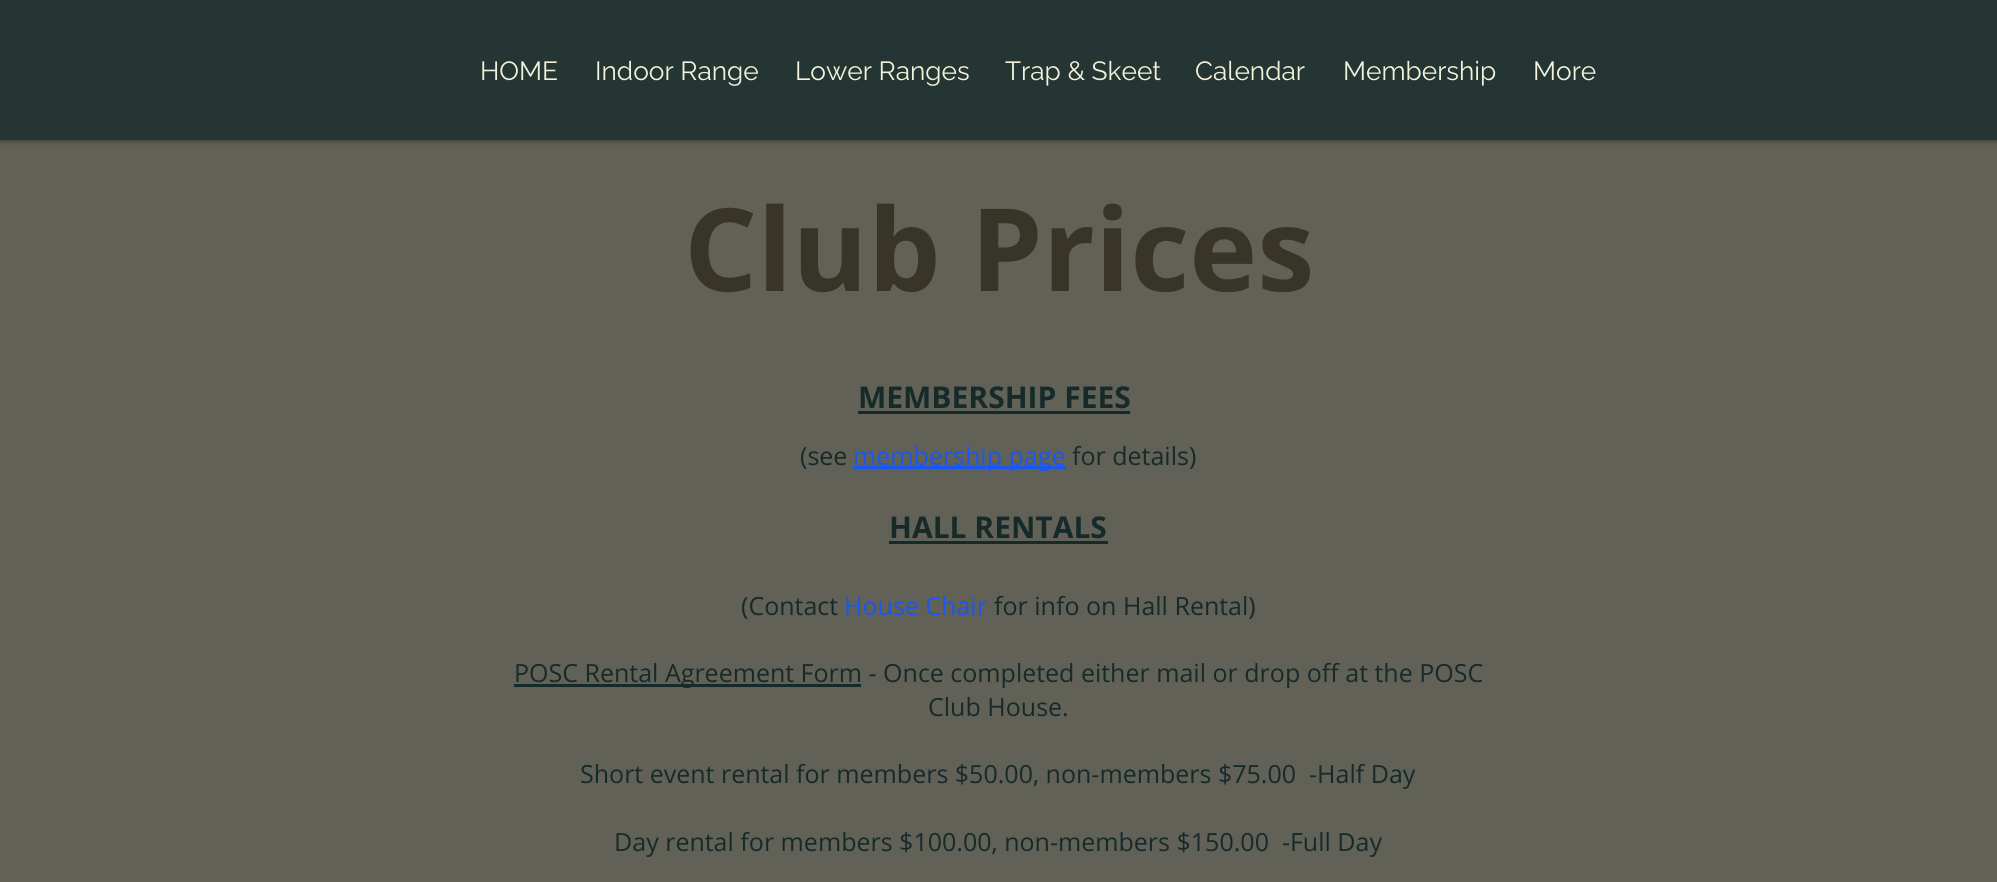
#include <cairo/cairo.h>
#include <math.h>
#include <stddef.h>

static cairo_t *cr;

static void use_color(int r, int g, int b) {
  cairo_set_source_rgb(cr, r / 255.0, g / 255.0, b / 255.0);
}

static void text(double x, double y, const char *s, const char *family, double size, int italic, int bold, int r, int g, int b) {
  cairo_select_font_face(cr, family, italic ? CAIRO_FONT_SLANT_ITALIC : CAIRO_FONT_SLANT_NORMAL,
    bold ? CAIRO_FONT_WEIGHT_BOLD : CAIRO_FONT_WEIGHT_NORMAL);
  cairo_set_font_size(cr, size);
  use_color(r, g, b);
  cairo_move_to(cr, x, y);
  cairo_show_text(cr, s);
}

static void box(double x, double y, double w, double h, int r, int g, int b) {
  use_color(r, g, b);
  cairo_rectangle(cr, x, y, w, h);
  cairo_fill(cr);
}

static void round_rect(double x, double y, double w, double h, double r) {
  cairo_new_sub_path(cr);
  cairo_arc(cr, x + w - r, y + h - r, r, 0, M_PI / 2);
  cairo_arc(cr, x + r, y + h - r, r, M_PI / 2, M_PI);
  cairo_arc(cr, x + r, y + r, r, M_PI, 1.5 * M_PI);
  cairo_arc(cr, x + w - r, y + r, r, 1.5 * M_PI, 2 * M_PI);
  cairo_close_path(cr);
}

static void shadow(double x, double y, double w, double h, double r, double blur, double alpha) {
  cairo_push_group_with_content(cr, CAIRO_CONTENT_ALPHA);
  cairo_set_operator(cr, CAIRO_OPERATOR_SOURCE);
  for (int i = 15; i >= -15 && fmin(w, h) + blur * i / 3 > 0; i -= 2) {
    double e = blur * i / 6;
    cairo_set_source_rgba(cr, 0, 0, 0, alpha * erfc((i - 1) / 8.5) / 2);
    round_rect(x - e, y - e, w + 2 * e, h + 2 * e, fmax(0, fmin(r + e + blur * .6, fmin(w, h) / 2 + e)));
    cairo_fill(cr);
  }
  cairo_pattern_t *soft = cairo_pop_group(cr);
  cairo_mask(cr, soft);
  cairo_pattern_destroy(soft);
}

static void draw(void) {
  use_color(97, 97, 88);
  cairo_paint(cr);
  use_color(0, 0, 0);
  shadow(0, 0, 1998, 140, 0, 3, 0.5);
  box(0, 0, 1997, 140, 37, 53, 51);
  box(858, 411, 272, 3, 22, 42, 42);
  box(854, 466, 212, 3, 26, 87, 240);
  box(889, 541, 219, 3, 22, 42, 42);
  box(514, 684, 347, 3, 22, 42, 42);
  text(480, 80, "HOME", "Raleway", 26.25, 0, 0, 243, 242, 220);
  text(595, 80, "Indoor Range", "Raleway", 26.25, 0, 0, 243, 242, 220);
  text(795, 80, "Lower Ranges", "Raleway", 26.25, 0, 0, 243, 242, 220);
  text(1005, 80, "Trap & Skeet", "Raleway", 26.25, 0, 0, 243, 242, 220);
  text(1195, 80, "Calendar", "Raleway", 26.25, 0, 0, 243, 242, 220);
  text(1343, 80, "Membership", "Raleway", 26.25, 0, 0, 243, 242, 220);
  text(1533, 80, "More", "Raleway", 26.25, 0, 0, 243, 242, 220);
  text(684, 291, "Club Prices", "Open Sans", 115, 0, 1, 56, 52, 39);
  text(858, 408, "MEMBERSHIP FEES", "Open Sans", 30, 0, 1, 22, 42, 42);
  text(800, 465, "(see", "Open Sans", 25, 0, 0, 22, 42, 42);
  text(853, 465, "membership page", "Open Sans", 25, 0, 0, 26, 87, 240);
  text(1072, 465, "for details)", "Open Sans", 25, 0, 0, 22, 42, 42);
  text(889, 538, "HALL RENTALS", "Open Sans", 30, 0, 1, 22, 42, 42);
  text(741, 615, "(Contact", "Open Sans", 25, 0, 0, 22, 42, 42);
  text(844, 615, "House Chair", "Open Sans", 25, 0, 0, 26, 87, 240);
  text(994, 615, "for info on Hall Rental)", "Open Sans", 25, 0, 0, 22, 42, 42);
  text(514, 682, "POSC Rental Agreement Form - Once completed either mail or drop off at the POSC", "Open Sans", 25, 0, 0, 22, 42, 42);
  text(928, 716, "Club House.", "Open Sans", 25, 0, 0, 22, 42, 42);
  text(580, 783, "Short event rental for members $50.00, non-members $75.00  -Half Day", "Open Sans", 25, 0, 0, 22, 42, 42);
  text(614, 851, "Day rental for members $100.00, non-members $150.00  -Full Day", "Open Sans", 25, 0, 0, 22, 42, 42);
}

int main(void) {
  cairo_surface_t *surface = cairo_image_surface_create(CAIRO_FORMAT_RGB24, 1997, 882);
  cr = cairo_create(surface);
  cairo_font_options_t *options = cairo_font_options_create();
  cairo_font_options_set_hint_metrics(options, CAIRO_HINT_METRICS_OFF);
  cairo_font_options_set_hint_style(options, CAIRO_HINT_STYLE_NONE);
  cairo_set_font_options(cr, options);
  cairo_set_miter_limit(cr, 4);
  draw();
  cairo_surface_write_to_png(surface, "out.png");
  cairo_font_options_destroy(options);
  cairo_destroy(cr);
  cairo_surface_destroy(surface);
  return 0;
}
